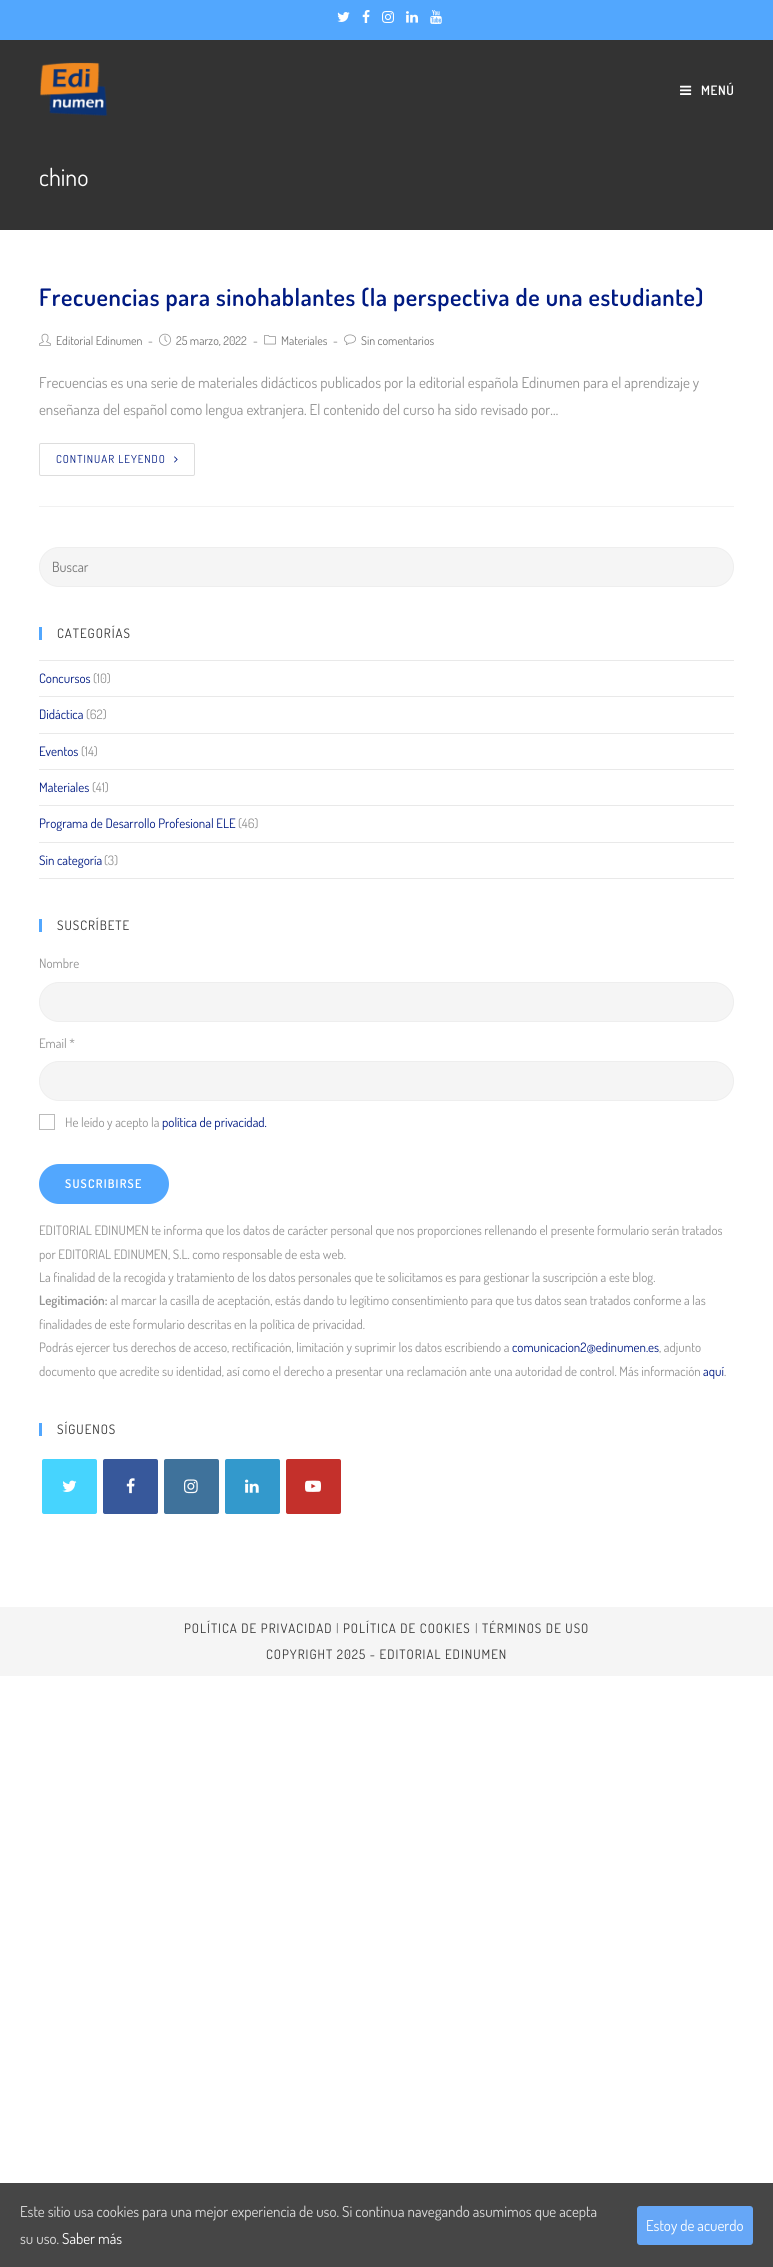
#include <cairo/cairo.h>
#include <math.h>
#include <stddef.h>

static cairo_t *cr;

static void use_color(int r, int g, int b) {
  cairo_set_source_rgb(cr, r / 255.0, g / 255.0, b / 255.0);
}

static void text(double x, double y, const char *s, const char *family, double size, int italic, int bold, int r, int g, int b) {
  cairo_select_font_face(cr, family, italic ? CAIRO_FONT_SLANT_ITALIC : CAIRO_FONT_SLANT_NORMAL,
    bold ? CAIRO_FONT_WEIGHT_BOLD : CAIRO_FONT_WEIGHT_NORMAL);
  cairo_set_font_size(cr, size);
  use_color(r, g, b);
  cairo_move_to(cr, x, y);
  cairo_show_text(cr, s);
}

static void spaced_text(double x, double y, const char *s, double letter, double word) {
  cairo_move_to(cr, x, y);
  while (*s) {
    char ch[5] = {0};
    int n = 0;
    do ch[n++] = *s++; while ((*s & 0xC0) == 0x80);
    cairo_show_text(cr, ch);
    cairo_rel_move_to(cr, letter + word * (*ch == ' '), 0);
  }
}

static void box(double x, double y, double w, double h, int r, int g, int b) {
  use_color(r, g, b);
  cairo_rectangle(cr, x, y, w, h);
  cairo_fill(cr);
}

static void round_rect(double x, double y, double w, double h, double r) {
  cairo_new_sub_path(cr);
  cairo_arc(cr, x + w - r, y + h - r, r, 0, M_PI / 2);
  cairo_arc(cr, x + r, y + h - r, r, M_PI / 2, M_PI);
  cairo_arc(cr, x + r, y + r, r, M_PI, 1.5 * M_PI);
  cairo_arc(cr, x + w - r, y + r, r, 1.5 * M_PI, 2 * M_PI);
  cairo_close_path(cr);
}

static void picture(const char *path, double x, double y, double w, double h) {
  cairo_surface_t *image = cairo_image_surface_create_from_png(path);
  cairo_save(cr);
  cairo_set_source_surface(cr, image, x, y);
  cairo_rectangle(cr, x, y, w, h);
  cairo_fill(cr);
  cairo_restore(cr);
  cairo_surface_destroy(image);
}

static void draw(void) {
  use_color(255, 255, 255);
  cairo_paint(cr);
  box(0, 0, 773, 40, 82, 167, 254);
  picture("img_01.png", 337, 12, 13, 10);
  picture("img_02.png", 362, 10, 8, 13);
  picture("img_03.png", 382, 11, 12, 12);
  picture("img_04.png", 406, 11, 12, 12);
  picture("img_05.png", 430, 10, 12, 14);
  box(0, 40, 773, 190, 51, 51, 51);
  picture("img_06.png", 40, 62, 68, 54);
  picture("img_07.png", 680, 85, 12, 10);
  box(39, 506, 695, 1, 241, 241, 241);
  picture("img_08.png", 39, 333, 12, 13);
  picture("img_09.png", 159, 333, 12, 13);
  picture("img_10.png", 264, 335, 12, 10);
  picture("img_11.png", 344, 334, 12, 11);
  round_rect(39.5, 443.5, 155, 32, 1.5);
  use_color(221, 221, 221);
  cairo_set_line_width(cr, 1);
  cairo_stroke(cr);
  picture("img_12.png", 174, 456, 4, 7);
  use_color(245, 245, 245);
  round_rect(39.5, 547.5, 694, 39, 19.5);
  cairo_fill_preserve(cr);
  use_color(238, 238, 238);
  cairo_stroke(cr);
  box(39, 627, 3, 13, 82, 167, 254);
  box(39, 660, 695, 1, 233, 233, 233);
  box(39, 696, 695, 1, 233, 233, 233);
  box(39, 733, 695, 1, 233, 233, 233);
  box(39, 769, 695, 1, 233, 233, 233);
  box(39, 805, 695, 1, 233, 233, 233);
  box(39, 842, 695, 1, 233, 233, 233);
  box(39, 878, 695, 1, 233, 233, 233);
  box(39, 919, 3, 13, 82, 167, 254);
  use_color(245, 245, 245);
  round_rect(39.5, 982.5, 694, 39, 19.5);
  cairo_fill_preserve(cr);
  use_color(238, 238, 238);
  cairo_stroke(cr);
  use_color(245, 245, 245);
  round_rect(39.5, 1061.5, 694, 39, 19.5);
  cairo_fill_preserve(cr);
  use_color(238, 238, 238);
  cairo_stroke(cr);
  cairo_rectangle(cr, 39.5, 1114.5, 15, 15);
  use_color(187, 187, 187);
  cairo_stroke(cr);
  use_color(82, 167, 254);
  round_rect(39, 1164, 130, 40, 20);
  cairo_fill(cr);
  box(39, 1423, 3, 13, 82, 167, 254);
  use_color(70, 212, 254);
  round_rect(42, 1459, 55, 55, 2);
  cairo_fill(cr);
  picture("img_13.png", 62, 1480, 15, 12);
  use_color(55, 88, 155);
  round_rect(103, 1459, 55, 55, 2);
  cairo_fill(cr);
  picture("img_14.png", 126, 1478, 9, 16);
  use_color(63, 114, 155);
  round_rect(164, 1459, 55, 55, 2);
  cairo_fill(cr);
  picture("img_15.png", 184, 1479, 14, 15);
  use_color(51, 153, 204);
  round_rect(225, 1459, 55, 55, 2);
  cairo_fill(cr);
  picture("img_16.png", 245, 1479, 14, 14);
  use_color(196, 48, 43);
  round_rect(286, 1459, 55, 55, 2);
  cairo_fill(cr);
  picture("img_17.png", 305, 1480, 16, 12);
  box(0, 1607, 773, 69, 245, 245, 245);
  box(0, 2183, 773, 84, 70, 70, 70);
  use_color(102, 167, 247);
  round_rect(637, 2206, 116, 39, 3);
  cairo_fill(cr);
  cairo_select_font_face(cr, "Dosis SemiBold", CAIRO_FONT_SLANT_NORMAL, CAIRO_FONT_WEIGHT_NORMAL);
  cairo_set_font_size(cr, 13);
  use_color(255, 255, 255);
  spaced_text(701, 95, "MENÚ", 0.6, 0);
  text(39, 186, "chino", "Dosis", 24, 0, 0, 255, 255, 255);
  cairo_select_font_face(cr, "Dosis SemiBold", CAIRO_FONT_SLANT_NORMAL, CAIRO_FONT_WEIGHT_NORMAL);
  use_color(0, 26, 130);
  spaced_text(39, 306, "Frecuencias para sinohablantes (la perspectiva de una estudiante)", 0.6, 0);
  text(56, 345, "Editorial Edinumen", "Dosis", 12, 0, 0, 117, 117, 117);
  text(148, 345, "-", "Dosis", 12, 0, 0, 117, 117, 117);
  text(176, 345, "25 marzo, 2022", "Dosis", 12, 0, 0, 117, 117, 117);
  text(253, 345, "-", "Dosis", 12, 0, 0, 117, 117, 117);
  text(281, 345, "Materiales", "Dosis", 12, 0, 0, 117, 117, 117);
  text(333, 345, "-", "Dosis", 12, 0, 0, 117, 117, 117);
  text(361, 345, "Sin comentarios", "Dosis", 12, 0, 0, 117, 117, 117);
  text(39, 388, "Frecuencias es una serie de materiales didácticos publicados por la editorial española Edinumen para el aprendizaje y", "Dosis", 15, 0, 0, 146, 146, 146);
  text(39, 415, "enseñanza del español como lengua extranjera. El contenido del curso ha sido revisado por…", "Dosis", 15, 0, 0, 146, 146, 146);
  cairo_set_font_size(cr, 11);
  use_color(0, 26, 130);
  spaced_text(56, 463, "CONTINUAR LEYENDO", 1, 0);
  text(52, 572, "Buscar", "Dosis", 14, 0, 0, 117, 117, 117);
  cairo_set_font_size(cr, 13);
  use_color(51, 51, 51);
  spaced_text(57, 638, "CATEGORÍAS", 1, 0);
  text(39, 683, "Concursos", "Dosis", 13, 0, 0, 0, 26, 130);
  text(93, 683, "(10)", "Dosis", 13, 0, 0, 146, 146, 146);
  text(39, 719, "Didáctica", "Dosis", 13, 0, 0, 0, 26, 130);
  text(86, 719, "(62)", "Dosis", 13, 0, 0, 146, 146, 146);
  text(39, 756, "Eventos", "Dosis", 13, 0, 0, 0, 26, 130);
  text(81, 756, "(14)", "Dosis", 13, 0, 0, 146, 146, 146);
  text(39, 792, "Materiales", "Dosis", 13, 0, 0, 0, 26, 130);
  text(92, 792, "(41)", "Dosis", 13, 0, 0, 146, 146, 146);
  text(39, 828, "Programa de Desarrollo Profesional ELE", "Dosis", 13, 0, 0, 0, 26, 130);
  text(238, 828, "(46)", "Dosis", 13, 0, 0, 146, 146, 146);
  text(39, 865, "Sin categoría", "Dosis", 13, 0, 0, 0, 26, 130);
  text(104, 865, "(3)", "Dosis", 13, 0, 0, 146, 146, 146);
  use_color(51, 51, 51);
  spaced_text(57, 930, "SUSCRÍBETE", 1, 0);
  text(39, 968, "Nombre", "Dosis", 13, 0, 0, 146, 146, 146);
  text(39, 1048, "Email *", "Dosis", 13, 0, 0, 146, 146, 146);
  text(65, 1127, "He leído y acepto la", "Dosis", 13, 0, 0, 146, 146, 146);
  text(162, 1127, "política de privacidad.", "Dosis", 13, 0, 0, 0, 26, 130);
  cairo_select_font_face(cr, "Dosis SemiBold", CAIRO_FONT_SLANT_NORMAL, CAIRO_FONT_WEIGHT_NORMAL);
  cairo_set_font_size(cr, 12);
  use_color(255, 255, 255);
  spaced_text(65, 1188, "SUSCRIBIRSE", 1.25, 0);
  text(39, 1235, "EDITORIAL EDINUMEN te informa que los datos de carácter personal que nos proporciones rellenando el presente formulario serán tratados", "Dosis", 13, 0, 0, 146, 146, 146);
  text(39, 1259, "por EDITORIAL EDINUMEN, S.L. como responsable de esta web.", "Dosis", 13, 0, 0, 146, 146, 146);
  text(39, 1282, "La finalidad de la recogida y tratamiento de los datos personales que te solicitamos es para gestionar la suscripción a este blog.", "Dosis", 13, 0, 0, 146, 146, 146);
  text(39, 1305, "Legitimación:", "Dosis SemiBold", 13, 0, 0, 146, 146, 146);
  text(110, 1305, "al marcar la casilla de aceptación, estás dando tu legítimo consentimiento para que tus datos sean tratados conforme a las", "Dosis", 13, 0, 0, 146, 146, 146);
  text(39, 1329, "finalidades de este formulario descritas en la política de privacidad.", "Dosis", 13, 0, 0, 146, 146, 146);
  text(39, 1352, "Podrás ejercer tus derechos de acceso, rectificación, limitación y suprimir los datos escribiendo a", "Dosis", 13, 0, 0, 146, 146, 146);
  text(512, 1352, "comunicacion2@edinumen.es", "Dosis", 13, 0, 0, 0, 26, 130);
  text(659, 1352, ", adjunto", "Dosis", 13, 0, 0, 146, 146, 146);
  text(39, 1376, "documento que acredite su identidad, así como el derecho a presentar una reclamación ante una autoridad de control. Más información", "Dosis", 13, 0, 0, 146, 146, 146);
  text(703, 1376, "aquí", "Dosis", 13, 0, 0, 0, 26, 130);
  text(724, 1376, ".", "Dosis", 13, 0, 0, 146, 146, 146);
  use_color(51, 51, 51);
  spaced_text(57, 1434, "SÍGUENOS", 1, 0);
  spaced_text(184, 1633, "POLÍTICA DE PRIVACIDAD", 1, 0);
  use_color(117, 117, 117);
  spaced_text(336, 1633, "|", 1, 0);
  use_color(51, 51, 51);
  spaced_text(343, 1633, "POLÍTICA DE COOKIES", 1, 0);
  use_color(117, 117, 117);
  spaced_text(475, 1633, "|", 1, 0);
  use_color(51, 51, 51);
  spaced_text(482, 1633, "TÉRMINOS DE USO", 1, 0);
  spaced_text(266, 1659, "COPYRIGHT 2025 - EDITORIAL EDINUMEN", 1, 0);
  text(20, 2217, "Este sitio usa cookies para una mejor experiencia de uso. Si continua navegando asumimos que acepta", "Dosis", 15, 0, 0, 221, 221, 221);
  text(20, 2244, "su uso.", "Dosis", 15, 0, 0, 221, 221, 221);
  text(62, 2244, "Saber más", "Dosis", 15, 0, 0, 255, 255, 255);
  text(646, 2231, "Estoy de acuerdo", "Dosis", 15, 0, 0, 255, 255, 255);
}

int main(void) {
  cairo_surface_t *surface = cairo_image_surface_create(CAIRO_FORMAT_RGB24, 773, 2267);
  cr = cairo_create(surface);
  cairo_font_options_t *options = cairo_font_options_create();
  cairo_font_options_set_hint_metrics(options, CAIRO_HINT_METRICS_OFF);
  cairo_font_options_set_hint_style(options, CAIRO_HINT_STYLE_NONE);
  cairo_set_font_options(cr, options);
  cairo_set_miter_limit(cr, 4);
  draw();
  cairo_surface_write_to_png(surface, "out.png");
  cairo_font_options_destroy(options);
  cairo_destroy(cr);
  cairo_surface_destroy(surface);
  return 0;
}
